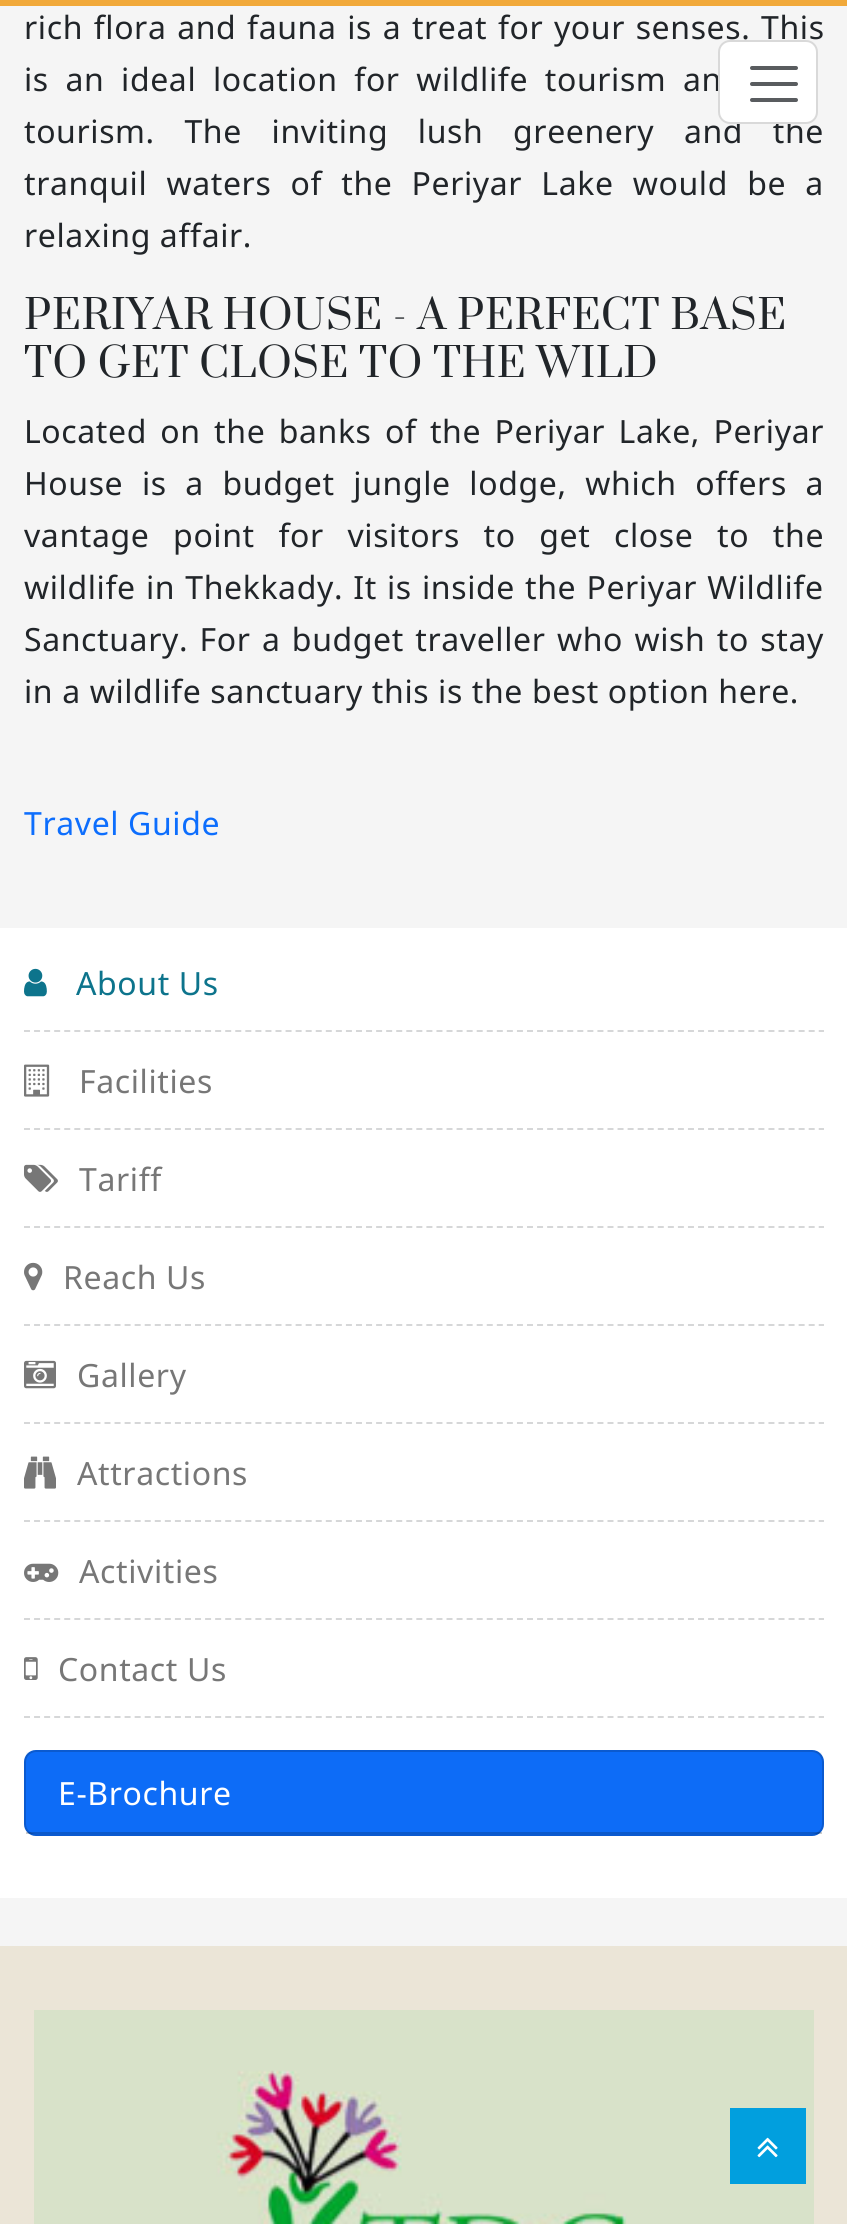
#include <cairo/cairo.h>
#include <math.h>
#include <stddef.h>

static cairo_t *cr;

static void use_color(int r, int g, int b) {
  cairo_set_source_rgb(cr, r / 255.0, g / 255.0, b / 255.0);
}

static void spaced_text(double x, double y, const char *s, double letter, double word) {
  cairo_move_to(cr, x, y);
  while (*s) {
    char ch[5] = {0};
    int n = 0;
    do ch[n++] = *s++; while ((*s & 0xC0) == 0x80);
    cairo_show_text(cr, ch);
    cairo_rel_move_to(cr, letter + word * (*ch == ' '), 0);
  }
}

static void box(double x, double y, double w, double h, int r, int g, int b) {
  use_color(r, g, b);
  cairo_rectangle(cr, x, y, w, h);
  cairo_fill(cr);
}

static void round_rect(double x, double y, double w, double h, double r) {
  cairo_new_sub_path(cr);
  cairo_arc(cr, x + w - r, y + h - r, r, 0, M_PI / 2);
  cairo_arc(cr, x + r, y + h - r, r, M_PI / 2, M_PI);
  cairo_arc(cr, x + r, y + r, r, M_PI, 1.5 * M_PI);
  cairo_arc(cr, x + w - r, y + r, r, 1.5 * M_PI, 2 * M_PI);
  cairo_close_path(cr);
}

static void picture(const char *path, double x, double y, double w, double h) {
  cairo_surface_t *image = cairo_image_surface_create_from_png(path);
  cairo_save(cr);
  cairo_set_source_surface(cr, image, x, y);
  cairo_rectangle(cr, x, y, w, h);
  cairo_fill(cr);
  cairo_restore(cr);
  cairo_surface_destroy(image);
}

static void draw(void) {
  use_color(245, 245, 245);
  cairo_paint(cr);
  box(0, 0, 847, 6, 241, 169, 58);
  box(0, 928, 847, 970, 255, 255, 255);
  cairo_new_path(cr);
  cairo_move_to(cr, 24, 1031);
  cairo_line_to(cr, 824, 1031);
  use_color(214, 215, 216);
  cairo_set_dash(cr, (double[]){6, 4.06}, 2, 0);
  cairo_stroke(cr);
  picture("img_01.png", 24, 968, 23, 29);
  cairo_new_path(cr);
  cairo_move_to(cr, 24, 1129);
  cairo_line_to(cr, 824, 1129);
  cairo_stroke(cr);
  picture("img_02.png", 24, 1064, 26, 33);
  cairo_new_path(cr);
  cairo_move_to(cr, 24, 1227);
  cairo_line_to(cr, 824, 1227);
  cairo_stroke(cr);
  picture("img_03.png", 24, 1164, 34, 28);
  cairo_new_path(cr);
  cairo_move_to(cr, 24, 1325);
  cairo_line_to(cr, 824, 1325);
  cairo_stroke(cr);
  picture("img_04.png", 24, 1262, 19, 29);
  cairo_new_path(cr);
  cairo_move_to(cr, 24, 1423);
  cairo_line_to(cr, 824, 1423);
  cairo_stroke(cr);
  picture("img_05.png", 24, 1360, 32, 29);
  cairo_new_path(cr);
  cairo_move_to(cr, 24, 1521);
  cairo_line_to(cr, 824, 1521);
  cairo_stroke(cr);
  picture("img_06.png", 24, 1456, 32, 33);
  cairo_new_path(cr);
  cairo_move_to(cr, 24, 1619);
  cairo_line_to(cr, 824, 1619);
  cairo_stroke(cr);
  picture("img_07.png", 24, 1563, 35, 19);
  cairo_new_path(cr);
  cairo_move_to(cr, 24, 1717);
  cairo_line_to(cr, 824, 1717);
  cairo_stroke(cr);
  picture("img_08.png", 24, 1657, 14, 23);
  use_color(13, 110, 253);
  round_rect(24, 1750, 800, 86, 12);
  cairo_fill(cr);
  round_rect(25, 1751, 798, 84, 11);
  cairo_set_source_rgba(cr, 0, 0, 0, 0.18);
  cairo_set_dash(cr, NULL, 0, 0);
  cairo_stroke(cr);
  cairo_set_source_rgba(cr, 0.129, 0.145, 0.161, 0.03);
  cairo_rectangle(cr, 26, 1752, 796, 82);
  cairo_fill(cr);
  cairo_set_source_rgba(cr, 0, 0, 0, 0.18);
  cairo_rectangle(cr, 26, 1832, 796, 2);
  cairo_fill(cr);
  box(0, 1946, 847, 278, 235, 229, 215);
  picture("img_09.png", 34, 2010, 780, 214);
  box(730, 2108, 76, 76, 1, 159, 222);
  picture("img_10.png", 757, 2137, 21, 21);
  cairo_select_font_face(cr, "Noto Sans", CAIRO_FONT_SLANT_NORMAL, CAIRO_FONT_WEIGHT_NORMAL);
  cairo_set_font_size(cr, 32);
  use_color(33, 37, 41);
  spaced_text(24, 39, "rich flora and fauna is a treat for your senses. This", 0.6, 1.75);
  spaced_text(24, 91, "is an ideal location for wildlife tourism an", 0.6, 7.75);
  spaced_text(24, 143, "tourism. The inviting lush greenery and the", 0.6, 20.75);
  use_color(255, 255, 255);
  round_rect(718, 40, 100, 84, 12);
  cairo_fill(cr);
  round_rect(719, 41, 98, 82, 11);
  cairo_set_source_rgba(cr, 0, 0, 0, 0.15);
  cairo_stroke(cr);
  cairo_new_path(cr);
  cairo_move_to(cr, 752, 68);
  cairo_line_to(cr, 796, 68);
  cairo_move_to(cr, 752, 84);
  cairo_line_to(cr, 796, 84);
  cairo_move_to(cr, 752, 100);
  cairo_line_to(cr, 796, 100);
  use_color(89, 92, 95);
  cairo_set_line_width(cr, 4);
  cairo_set_line_cap(cr, CAIRO_LINE_CAP_ROUND);
  cairo_stroke(cr);
  use_color(33, 37, 41);
  spaced_text(24, 195, "tranquil waters of the Periyar Lake would be a", 0.6, 10.25);
  spaced_text(24, 247, "relaxing affair.", 0.6, 0);
  cairo_select_font_face(cr, "Prata", CAIRO_FONT_SLANT_NORMAL, CAIRO_FONT_WEIGHT_NORMAL);
  cairo_set_font_size(cr, 40);
  spaced_text(24, 329, "PERIYAR HOUSE - A PERFECT BASE", 0.6, 0);
  spaced_text(24, 377, "TO GET CLOSE TO THE WILD", 0.6, 0);
  cairo_select_font_face(cr, "Noto Sans", CAIRO_FONT_SLANT_NORMAL, CAIRO_FONT_WEIGHT_NORMAL);
  cairo_set_font_size(cr, 32);
  spaced_text(24, 443, "Located on the banks of the Periyar Lake, Periyar", 0.6, 4.5);
  spaced_text(24, 495, "House is a budget jungle lodge, which offers a", 0.6, 9.75);
  spaced_text(24, 547, "vantage point for visitors to get close to the", 0.6, 14.75);
  spaced_text(24, 599, "wildlife in Thekkady. It is inside the Periyar Wildlife", 0.6, 1.25);
  spaced_text(24, 651, "Sanctuary. For a budget traveller who wish to stay", 0.6, 2.5);
  spaced_text(24, 703, "in a wildlife sanctuary this is the best option here.", 0.6, 0);
  use_color(13, 110, 253);
  spaced_text(24, 835, "Travel Guide", 0.6, 0);
  use_color(13, 116, 140);
  spaced_text(76, 995, "About Us", 0.6, 0);
  use_color(119, 119, 119);
  spaced_text(79, 1093, "Facilities", 0.6, 0);
  spaced_text(79, 1191, "Tariff", 0.6, 0);
  spaced_text(63, 1289, "Reach Us", 0.6, 0);
  spaced_text(77, 1387, "Gallery", 0.6, 0);
  spaced_text(77, 1485, "Attractions", 0.6, 0);
  spaced_text(79, 1583, "Activities", 0.6, 0);
  spaced_text(58, 1681, "Contact Us", 0.6, 0);
  use_color(255, 255, 255);
  spaced_text(58, 1805, "E-Brochure", 0.6, 0);
}

int main(void) {
  cairo_surface_t *surface = cairo_image_surface_create(CAIRO_FORMAT_RGB24, 847, 2224);
  cr = cairo_create(surface);
  cairo_font_options_t *options = cairo_font_options_create();
  cairo_font_options_set_hint_metrics(options, CAIRO_HINT_METRICS_OFF);
  cairo_font_options_set_hint_style(options, CAIRO_HINT_STYLE_NONE);
  cairo_set_font_options(cr, options);
  cairo_set_miter_limit(cr, 4);
  draw();
  cairo_surface_write_to_png(surface, "out.png");
  cairo_font_options_destroy(options);
  cairo_destroy(cr);
  cairo_surface_destroy(surface);
  return 0;
}
